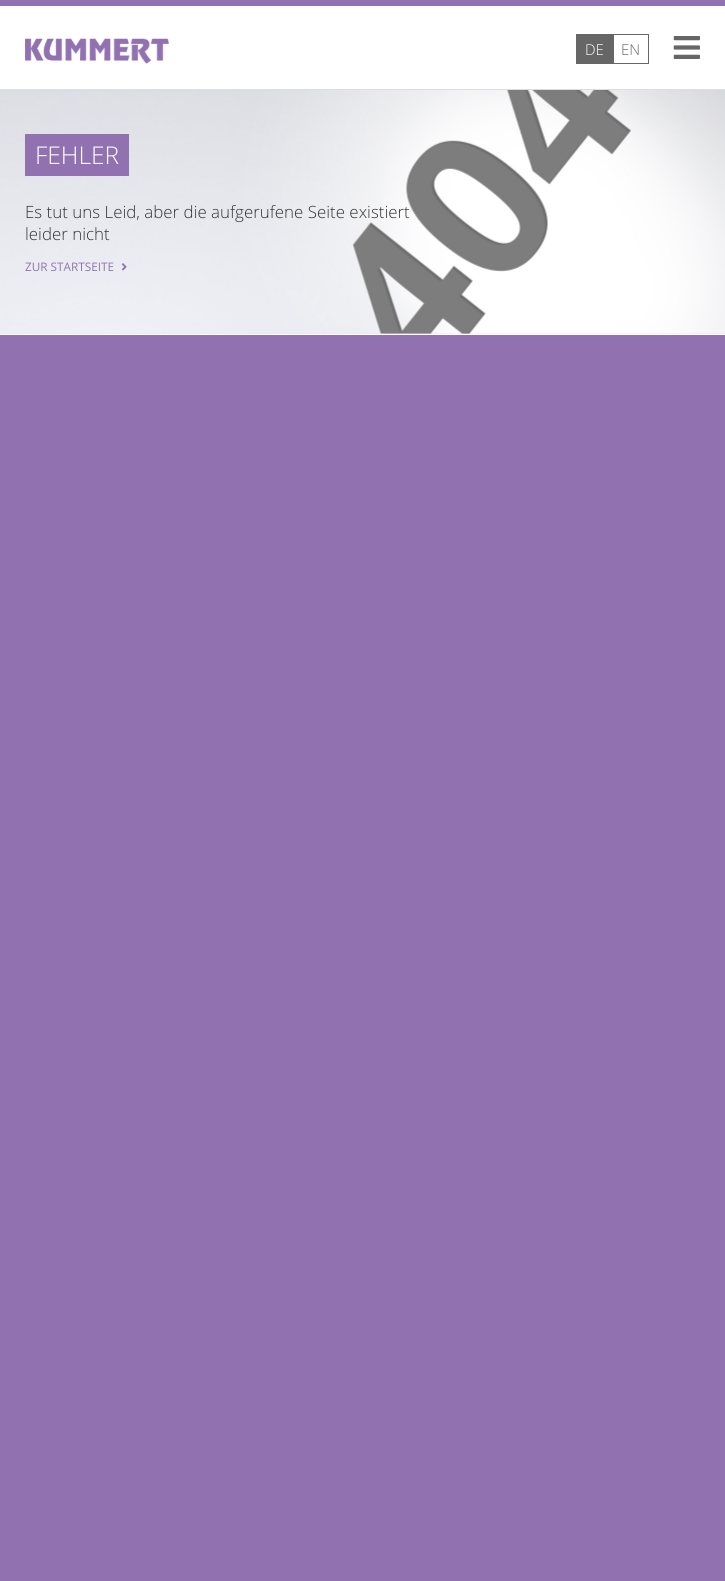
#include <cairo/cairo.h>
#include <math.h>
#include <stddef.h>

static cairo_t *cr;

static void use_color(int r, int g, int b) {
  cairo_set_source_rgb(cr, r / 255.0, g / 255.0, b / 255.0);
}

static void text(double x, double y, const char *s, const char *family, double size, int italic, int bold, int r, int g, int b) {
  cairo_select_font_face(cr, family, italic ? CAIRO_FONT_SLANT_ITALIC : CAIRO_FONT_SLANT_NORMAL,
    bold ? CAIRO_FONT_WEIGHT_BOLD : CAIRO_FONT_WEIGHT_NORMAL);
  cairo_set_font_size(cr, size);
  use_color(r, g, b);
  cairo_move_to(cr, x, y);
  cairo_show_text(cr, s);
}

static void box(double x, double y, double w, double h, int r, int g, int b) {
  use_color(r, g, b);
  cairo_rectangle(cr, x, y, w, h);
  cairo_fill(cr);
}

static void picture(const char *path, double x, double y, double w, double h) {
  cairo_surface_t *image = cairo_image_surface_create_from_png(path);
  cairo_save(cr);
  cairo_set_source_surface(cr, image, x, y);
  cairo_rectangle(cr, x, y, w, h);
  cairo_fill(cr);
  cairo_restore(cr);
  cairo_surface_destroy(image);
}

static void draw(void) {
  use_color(145, 113, 176);
  cairo_paint(cr);
  box(0, 334, 725, 1, 255, 255, 255);
  box(0, 6, 725, 83, 255, 255, 255);
  box(0, 89, 725, 1, 221, 221, 221);
  picture("img_01.png", 25, 38, 144, 26);
  box(576, 34, 37, 30, 102, 102, 102);
  cairo_rectangle(cr, 613.5, 34.5, 35, 29);
  cairo_set_line_width(cr, 1);
  cairo_stroke(cr);
  picture("img_02.png", 673, 36, 27, 23);
  box(0, 333, 725, 1, 229, 230, 235);
  picture("img_03.png", 0, 90, 725, 244);
  box(25, 134, 104, 42, 145, 113, 176);
  picture("img_04.png", 121, 263, 6, 8);
  text(585, 55, "DE", "Open Sans Light", 15, 0, 0, 255, 255, 255);
  text(621, 55, "EN", "Open Sans Light", 15, 0, 0, 102, 102, 102);
  text(35, 164, "FEHLER", "Open Sans Light", 24.5, 0, 0, 255, 255, 255);
  text(25, 218, "Es tut uns Leid, aber die aufgerufene Seite existiert", "Open Sans Light", 16.9, 0, 0, 51, 51, 51);
  text(25, 240, "leider nicht", "Open Sans Light", 16.9, 0, 0, 51, 51, 51);
  text(25, 271, "ZUR STARTSEITE", "Open Sans", 11.75, 0, 0, 145, 113, 176);
}

int main(void) {
  cairo_surface_t *surface = cairo_image_surface_create(CAIRO_FORMAT_RGB24, 725, 1581);
  cr = cairo_create(surface);
  cairo_font_options_t *options = cairo_font_options_create();
  cairo_font_options_set_hint_metrics(options, CAIRO_HINT_METRICS_OFF);
  cairo_font_options_set_hint_style(options, CAIRO_HINT_STYLE_NONE);
  cairo_set_font_options(cr, options);
  cairo_set_miter_limit(cr, 4);
  draw();
  cairo_surface_write_to_png(surface, "out.png");
  cairo_font_options_destroy(options);
  cairo_destroy(cr);
  cairo_surface_destroy(surface);
  return 0;
}
